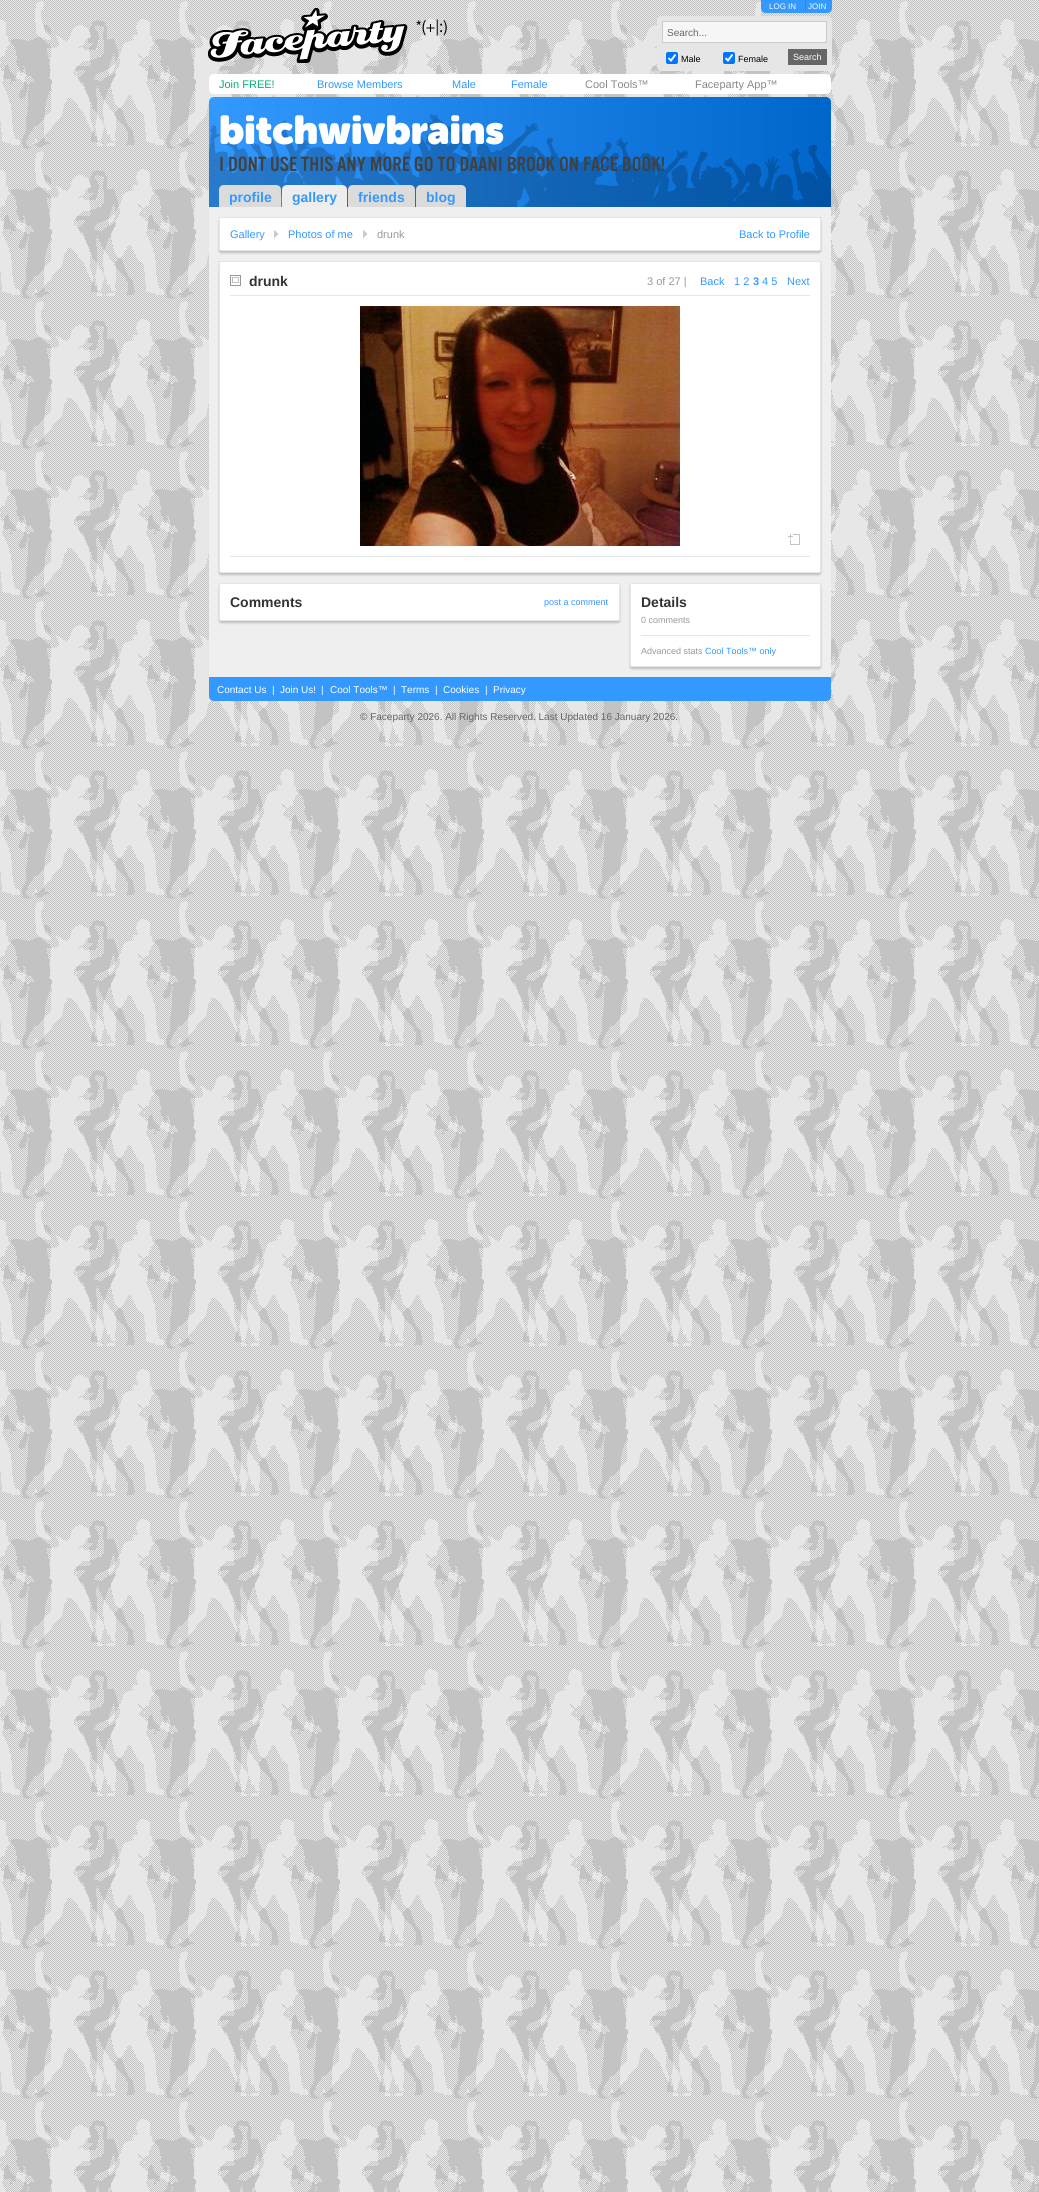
#include <cairo/cairo.h>
#include <math.h>
#include <stddef.h>

static cairo_t *cr;

static void use_color(int r, int g, int b) {
  cairo_set_source_rgb(cr, r / 255.0, g / 255.0, b / 255.0);
}

static void text(double x, double y, const char *s, const char *family, double size, int italic, int bold, int r, int g, int b) {
  cairo_select_font_face(cr, family, italic ? CAIRO_FONT_SLANT_ITALIC : CAIRO_FONT_SLANT_NORMAL,
    bold ? CAIRO_FONT_WEIGHT_BOLD : CAIRO_FONT_WEIGHT_NORMAL);
  cairo_set_font_size(cr, size);
  use_color(r, g, b);
  cairo_move_to(cr, x, y);
  cairo_show_text(cr, s);
}

static void box(double x, double y, double w, double h, int r, int g, int b) {
  use_color(r, g, b);
  cairo_rectangle(cr, x, y, w, h);
  cairo_fill(cr);
}

static void round_rect(double x, double y, double w, double h, double r) {
  cairo_new_sub_path(cr);
  cairo_arc(cr, x + w - r, y + h - r, r, 0, M_PI / 2);
  cairo_arc(cr, x + r, y + h - r, r, M_PI / 2, M_PI);
  cairo_arc(cr, x + r, y + r, r, M_PI, 1.5 * M_PI);
  cairo_arc(cr, x + w - r, y + r, r, 1.5 * M_PI, 2 * M_PI);
  cairo_close_path(cr);
}

static void shadow(double x, double y, double w, double h, double r, double blur, double alpha) {
  cairo_push_group_with_content(cr, CAIRO_CONTENT_ALPHA);
  cairo_set_operator(cr, CAIRO_OPERATOR_SOURCE);
  for (int i = 15; i >= -15 && fmin(w, h) + blur * i / 3 > 0; i -= 2) {
    double e = blur * i / 6;
    cairo_set_source_rgba(cr, 0, 0, 0, alpha * erfc((i - 1) / 8.5) / 2);
    round_rect(x - e, y - e, w + 2 * e, h + 2 * e, fmax(0, fmin(r + e + blur * .6, fmin(w, h) / 2 + e)));
    cairo_fill(cr);
  }
  cairo_pattern_t *soft = cairo_pop_group(cr);
  cairo_mask(cr, soft);
  cairo_pattern_destroy(soft);
}

static void picture(const char *path, double x, double y, double w, double h) {
  cairo_surface_t *image = cairo_image_surface_create_from_png(path);
  cairo_save(cr);
  cairo_set_source_surface(cr, image, x, y);
  cairo_rectangle(cr, x, y, w, h);
  cairo_fill(cr);
  cairo_restore(cr);
  cairo_surface_destroy(image);
}

static void draw(void) {
  use_color(255, 255, 255);
  cairo_paint(cr);
  picture("img_01.png", 0, 0, 1039, 2192);
  picture("img_02.png", 208, 8, 239, 55);
  use_color(51, 153, 255);
  cairo_new_path(cr);
  cairo_move_to(cr, 761, 0);
  cairo_line_to(cr, 832, 0);
  cairo_line_to(cr, 832, 8);
  cairo_curve_to(cr, 832, 11, 830, 13, 827, 13);
  cairo_line_to(cr, 766, 13);
  cairo_curve_to(cr, 763, 13, 761, 11, 761, 8);
  cairo_close_path(cr);
  cairo_fill(cr);
  box(805, 0, 1, 11, 46, 137, 229);
  use_color(230, 230, 230);
  round_rect(657, 16, 175, 55, 5);
  cairo_fill(cr);
  use_color(246, 246, 246);
  cairo_rectangle(cr, 662.5, 21.5, 164, 21);
  cairo_fill_preserve(cr);
  use_color(204, 204, 204);
  cairo_set_line_width(cr, 1);
  cairo_stroke(cr);
  use_color(0, 117, 255);
  round_rect(666, 52, 12, 12, 2);
  cairo_fill(cr);
  cairo_new_path(cr);
  cairo_move_to(cr, 668.5, 58);
  cairo_line_to(cr, 671, 60.5);
  cairo_line_to(cr, 675.5, 54.5);
  use_color(255, 255, 255);
  cairo_set_line_width(cr, 1.9);
  cairo_stroke(cr);
  use_color(0, 117, 255);
  round_rect(723, 52, 12, 12, 2);
  cairo_fill(cr);
  cairo_new_path(cr);
  cairo_move_to(cr, 725.5, 58);
  cairo_line_to(cr, 728, 60.5);
  cairo_line_to(cr, 732.5, 54.5);
  use_color(255, 255, 255);
  cairo_stroke(cr);
  box(788, 49, 39, 16, 102, 102, 102);
  use_color(255, 255, 255);
  round_rect(209, 74, 622, 20, 5);
  cairo_fill(cr);
  picture("img_03.png", 209, 97, 622, 110);
  use_color(219, 219, 219);
  cairo_new_path(cr);
  cairo_move_to(cr, 224, 185);
  cairo_line_to(cr, 276, 185);
  cairo_curve_to(cr, 279, 185, 281, 187, 281, 190);
  cairo_line_to(cr, 281, 207);
  cairo_line_to(cr, 219, 207);
  cairo_line_to(cr, 219, 190);
  cairo_curve_to(cr, 219, 187, 221, 185, 224, 185);
  cairo_close_path(cr);
  cairo_fill(cr);
  use_color(237, 237, 237);
  cairo_new_path(cr);
  cairo_move_to(cr, 287, 185);
  cairo_line_to(cr, 342, 185);
  cairo_curve_to(cr, 345, 185, 347, 187, 347, 190);
  cairo_line_to(cr, 347, 207);
  cairo_line_to(cr, 282, 207);
  cairo_line_to(cr, 282, 190);
  cairo_curve_to(cr, 282, 187, 284, 185, 287, 185);
  cairo_close_path(cr);
  cairo_fill(cr);
  use_color(219, 219, 219);
  cairo_new_path(cr);
  cairo_move_to(cr, 353, 185);
  cairo_line_to(cr, 410, 185);
  cairo_curve_to(cr, 413, 185, 415, 187, 415, 190);
  cairo_line_to(cr, 415, 207);
  cairo_line_to(cr, 348, 207);
  cairo_line_to(cr, 348, 190);
  cairo_curve_to(cr, 348, 187, 350, 185, 353, 185);
  cairo_close_path(cr);
  cairo_fill(cr);
  cairo_new_path(cr);
  cairo_move_to(cr, 421, 185);
  cairo_line_to(cr, 461, 185);
  cairo_curve_to(cr, 464, 185, 466, 187, 466, 190);
  cairo_line_to(cr, 466, 207);
  cairo_line_to(cr, 416, 207);
  cairo_line_to(cr, 416, 190);
  cairo_curve_to(cr, 416, 187, 418, 185, 421, 185);
  cairo_close_path(cr);
  cairo_fill(cr);
  box(209, 207, 622, 10, 239, 239, 239);
  box(209, 217, 10, 34, 239, 239, 239);
  box(821, 217, 10, 34, 239, 239, 239);
  box(209, 251, 622, 10, 239, 239, 239);
  use_color(0, 0, 0);
  shadow(219, 219, 602, 34, 2, 1, 0.2);
  round_rect(219.5, 217.5, 601, 33, 1.5);
  use_color(229, 229, 229);
  cairo_set_line_width(cr, 1);
  cairo_stroke(cr);
  box(220, 218, 600, 32, 255, 255, 255);
  picture("img_04.png", 274, 230, 4, 8);
  picture("img_04.png", 363, 230, 4, 8);
  box(209, 261, 10, 312, 239, 239, 239);
  box(821, 261, 10, 312, 239, 239, 239);
  box(209, 573, 622, 10, 239, 239, 239);
  use_color(0, 0, 0);
  shadow(219, 263, 602, 312, 2, 1, 0.2);
  round_rect(219.5, 261.5, 601, 311, 1.5);
  use_color(229, 229, 229);
  cairo_stroke(cr);
  box(220, 262, 600, 310, 255, 255, 255);
  picture("img_05.png", 230, 275, 11, 11);
  box(230, 295, 580, 1, 230, 230, 230);
  picture("img_06.png", 360, 306, 320, 240);
  picture("img_07.png", 788, 534, 12, 11);
  box(230, 556, 580, 1, 230, 230, 230);
  box(209, 583, 622, 94, 239, 239, 239);
  use_color(0, 0, 0);
  shadow(219, 585, 401, 38, 2, 1, 0.2);
  round_rect(219.5, 583.5, 400, 37, 1.5);
  use_color(229, 229, 229);
  cairo_stroke(cr);
  box(220, 584, 399, 36, 255, 255, 255);
  use_color(0, 0, 0);
  shadow(630, 585, 191, 84, 2, 1, 0.2);
  round_rect(630.5, 583.5, 190, 83, 1.5);
  use_color(229, 229, 229);
  cairo_stroke(cr);
  box(631, 584, 189, 82, 255, 255, 255);
  box(641, 635, 169, 1, 230, 230, 230);
  use_color(51, 153, 255);
  cairo_new_path(cr);
  cairo_move_to(cr, 209, 677);
  cairo_line_to(cr, 831, 677);
  cairo_line_to(cr, 831, 696);
  cairo_curve_to(cr, 831, 699, 829, 701, 826, 701);
  cairo_line_to(cr, 214, 701);
  cairo_curve_to(cr, 211, 701, 209, 699, 209, 696);
  cairo_close_path(cr);
  cairo_fill(cr);
  text(769, 9, "LOG IN", "Liberation Sans", 8, 0, 0, 255, 255, 255);
  text(808, 9, "JOIN", "Liberation Sans", 8, 0, 0, 255, 255, 255);
  text(667, 36, "Search...", "Liberation Sans", 10, 0, 0, 102, 102, 102);
  text(681, 62, "Male", "Liberation Sans", 9, 0, 0, 0, 0, 0);
  text(738, 62, "Female", "Liberation Sans", 9, 0, 0, 0, 0, 0);
  text(793, 60, "Search", "Liberation Sans", 9, 0, 0, 255, 255, 255);
  text(219, 88, "Join FREE!", "Liberation Sans", 11, 0, 0, 0, 176, 112);
  text(317, 88, "Browse Members", "Liberation Sans", 11, 0, 0, 51, 153, 255);
  text(452, 88, "Male", "Liberation Sans", 11, 0, 0, 51, 153, 255);
  text(511, 88, "Female", "Liberation Sans", 11, 0, 0, 51, 153, 255);
  text(585, 88, "Cool Tools™", "Liberation Sans", 11, 0, 0, 136, 136, 136);
  text(695, 88, "Faceparty App™", "Liberation Sans", 11, 0, 0, 136, 136, 136);
  text(219, 144, "bitchwivbrains", "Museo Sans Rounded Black", 40, 0, 0, 255, 255, 255);
  text(219, 171, "I DONT USE THIS ANY MORE GO TO DAANI BROOK ON FACE BOOK!", "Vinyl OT", 20, 0, 0, 65, 65, 65);
  text(229, 202, "profile", "Liberation Sans", 14, 0, 1, 51, 153, 255);
  text(292, 202, "gallery", "Liberation Sans", 14, 0, 1, 51, 153, 255);
  text(358, 202, "friends", "Liberation Sans", 14, 0, 1, 51, 153, 255);
  text(426, 202, "blog", "Liberation Sans", 14, 0, 1, 51, 153, 255);
  text(230, 238, "Gallery", "Liberation Sans", 11, 0, 0, 51, 153, 255);
  text(288, 238, "Photos of me", "Liberation Sans", 11, 0, 0, 51, 153, 255);
  text(377, 238, "drunk", "Liberation Sans", 11, 0, 0, 153, 153, 153);
  text(739, 238, "Back to Profile", "Liberation Sans", 11, 0, 0, 51, 153, 255);
  text(249, 286, "drunk", "Liberation Sans", 14, 0, 1, 51, 51, 51);
  text(647, 285, "3 of 27 |", "Liberation Sans", 11, 0, 0, 153, 153, 153);
  text(700, 285, "Back", "Liberation Sans", 11, 0, 0, 51, 153, 255);
  text(734, 285, "1 2", "Liberation Sans", 11, 0, 0, 51, 153, 255);
  text(753, 285, "3", "Liberation Sans", 11, 0, 1, 51, 153, 255);
  text(762, 285, "4 5", "Liberation Sans", 11, 0, 0, 51, 153, 255);
  text(787, 285, "Next", "Liberation Sans", 11, 0, 0, 51, 153, 255);
  text(230, 607, "Comments", "Liberation Sans", 14, 0, 1, 51, 51, 51);
  text(544, 605, "post a comment", "Liberation Sans", 9, 0, 0, 51, 153, 255);
  text(641, 607, "Details", "Liberation Sans", 14, 0, 1, 51, 51, 51);
  text(641, 623, "0 comments", "Liberation Sans", 9, 0, 0, 153, 153, 153);
  text(641, 654, "Advanced stats", "Liberation Sans", 9, 0, 0, 153, 153, 153);
  text(705, 654, "Cool Tools™ only", "Liberation Sans", 9, 0, 0, 51, 153, 255);
  text(217, 693, "Contact Us", "Liberation Sans", 10, 0, 0, 255, 255, 255);
  text(272, 693, "|", "Liberation Sans", 10, 0, 0, 255, 255, 255);
  text(280, 693, "Join Us!", "Liberation Sans", 10, 0, 0, 255, 255, 255);
  text(321, 693, "|", "Liberation Sans", 10, 0, 0, 255, 255, 255);
  text(330, 693, "Cool Tools™", "Liberation Sans", 10, 0, 0, 255, 255, 255);
  text(393, 693, "|", "Liberation Sans", 10, 0, 0, 255, 255, 255);
  text(401, 693, "Terms", "Liberation Sans", 10, 0, 0, 255, 255, 255);
  text(435, 693, "|", "Liberation Sans", 10, 0, 0, 255, 255, 255);
  text(443, 693, "Cookies", "Liberation Sans", 10, 0, 0, 255, 255, 255);
  text(485, 693, "|", "Liberation Sans", 10, 0, 0, 255, 255, 255);
  text(493, 693, "Privacy", "Liberation Sans", 10, 0, 0, 255, 255, 255);
  text(360, 720, "© Faceparty 2026. All Rights Reserved. Last Updated 16 January 2026.", "Liberation Sans", 10, 0, 0, 102, 102, 102);
}

int main(void) {
  cairo_surface_t *surface = cairo_image_surface_create(CAIRO_FORMAT_RGB24, 1039, 2192);
  cr = cairo_create(surface);
  cairo_font_options_t *options = cairo_font_options_create();
  cairo_font_options_set_hint_metrics(options, CAIRO_HINT_METRICS_OFF);
  cairo_font_options_set_hint_style(options, CAIRO_HINT_STYLE_NONE);
  cairo_set_font_options(cr, options);
  cairo_set_miter_limit(cr, 4);
  draw();
  cairo_surface_write_to_png(surface, "out.png");
  cairo_font_options_destroy(options);
  cairo_destroy(cr);
  cairo_surface_destroy(surface);
  return 0;
}
